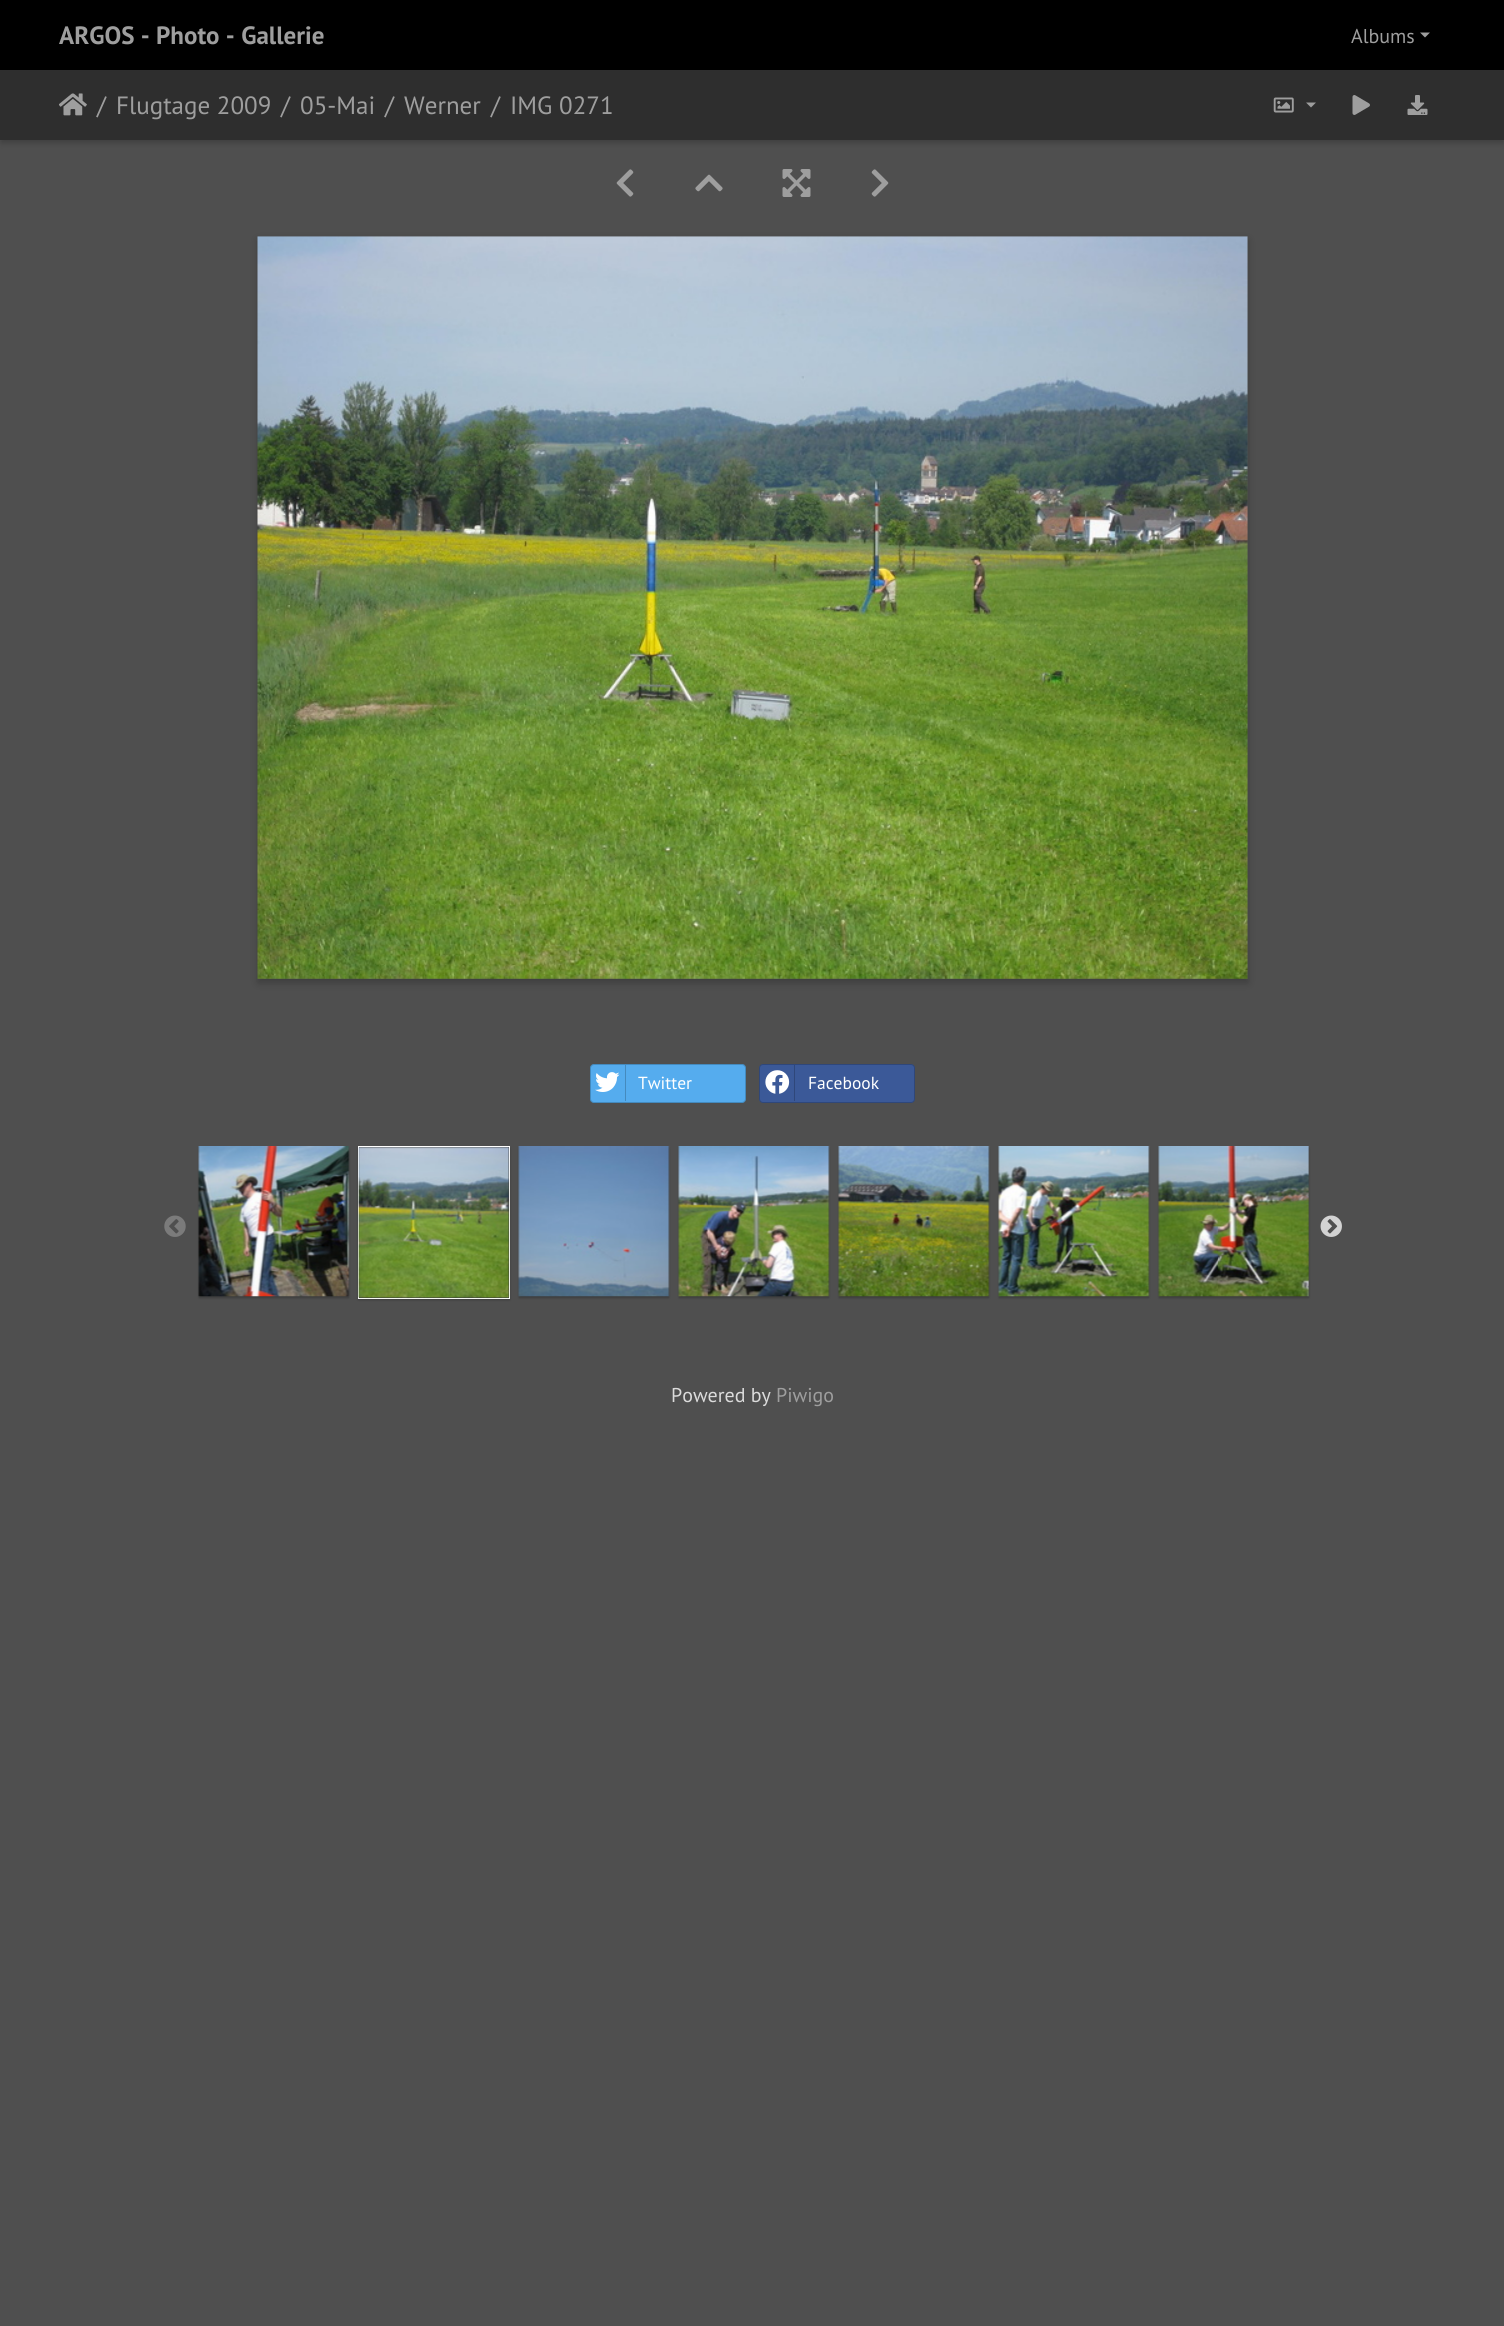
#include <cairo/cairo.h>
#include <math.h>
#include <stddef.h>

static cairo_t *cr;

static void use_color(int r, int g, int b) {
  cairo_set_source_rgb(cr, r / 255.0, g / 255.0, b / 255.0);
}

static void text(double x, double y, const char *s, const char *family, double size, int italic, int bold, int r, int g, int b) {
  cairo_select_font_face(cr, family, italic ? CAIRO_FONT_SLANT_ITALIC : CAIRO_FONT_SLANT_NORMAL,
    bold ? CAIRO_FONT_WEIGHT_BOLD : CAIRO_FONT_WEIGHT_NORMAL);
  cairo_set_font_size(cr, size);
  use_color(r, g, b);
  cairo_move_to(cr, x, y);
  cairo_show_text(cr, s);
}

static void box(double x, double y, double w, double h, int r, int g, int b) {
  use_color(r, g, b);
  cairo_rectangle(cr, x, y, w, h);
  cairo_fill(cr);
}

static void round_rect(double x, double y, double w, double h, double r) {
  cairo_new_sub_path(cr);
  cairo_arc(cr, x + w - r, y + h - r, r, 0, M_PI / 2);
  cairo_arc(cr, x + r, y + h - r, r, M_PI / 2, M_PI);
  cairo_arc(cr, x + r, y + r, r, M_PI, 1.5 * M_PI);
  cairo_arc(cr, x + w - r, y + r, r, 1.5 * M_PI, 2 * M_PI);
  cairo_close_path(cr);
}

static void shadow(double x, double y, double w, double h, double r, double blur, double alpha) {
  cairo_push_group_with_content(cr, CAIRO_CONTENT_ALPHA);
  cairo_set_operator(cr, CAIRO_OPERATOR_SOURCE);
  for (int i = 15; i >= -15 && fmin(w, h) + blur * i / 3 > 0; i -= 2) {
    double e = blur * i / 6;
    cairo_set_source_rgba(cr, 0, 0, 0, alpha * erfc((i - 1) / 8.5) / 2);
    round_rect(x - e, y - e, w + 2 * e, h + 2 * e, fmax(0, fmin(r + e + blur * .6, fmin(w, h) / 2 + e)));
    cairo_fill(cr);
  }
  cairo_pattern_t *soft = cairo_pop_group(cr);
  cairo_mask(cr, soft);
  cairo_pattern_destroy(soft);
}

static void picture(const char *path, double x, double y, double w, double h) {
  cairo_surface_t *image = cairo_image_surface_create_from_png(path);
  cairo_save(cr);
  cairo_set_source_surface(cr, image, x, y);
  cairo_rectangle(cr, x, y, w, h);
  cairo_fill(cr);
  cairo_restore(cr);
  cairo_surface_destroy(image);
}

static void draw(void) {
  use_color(79, 79, 79);
  cairo_paint(cr);
  use_color(0, 0, 0);
  shadow(1, 75, 1503, 68, 0, 3, 0.2);
  box(0, 0, 1504, 70, 0, 0, 0);
  use_color(158, 158, 158);
  cairo_new_path(cr);
  cairo_move_to(cr, 1420, 32.5);
  cairo_line_to(cr, 1430, 32.5);
  cairo_line_to(cr, 1425, 37.5);
  cairo_close_path(cr);
  cairo_fill(cr);
  box(0, 70, 1504, 70, 46, 46, 46);
  picture("img_01.png", 59, 93, 28, 23);
  picture("img_02.png", 1273, 97, 21, 16);
  use_color(158, 158, 158);
  cairo_new_path(cr);
  cairo_move_to(cr, 1306, 102.5);
  cairo_line_to(cr, 1316, 102.5);
  cairo_line_to(cr, 1311, 107.5);
  cairo_close_path(cr);
  cairo_fill(cr);
  picture("img_03.png", 1352, 95, 18, 20);
  picture("img_04.png", 1407, 95, 21, 20);
  picture("img_05.png", 616, 169, 18, 28);
  picture("img_06.png", 695, 174, 28, 18);
  picture("img_07.png", 782, 169, 29, 28);
  picture("img_08.png", 871, 169, 18, 28);
  cairo_save(cr);
  cairo_set_fill_rule(cr, CAIRO_FILL_RULE_EVEN_ODD);
  cairo_new_path(cr);
  cairo_move_to(cr, 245, 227);
  cairo_line_to(cr, 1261, 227);
  cairo_line_to(cr, 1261, 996);
  cairo_line_to(cr, 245, 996);
  cairo_close_path(cr);
  cairo_move_to(cr, 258, 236);
  cairo_line_to(cr, 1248, 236);
  cairo_line_to(cr, 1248, 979);
  cairo_line_to(cr, 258, 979);
  cairo_close_path(cr);
  cairo_clip(cr);
  use_color(0, 0, 0);
  shadow(258, 240, 990, 743, 0, 4, 0.23);
  cairo_restore(cr);
  picture("img_09.png", 257, 236, 991, 743);
  use_color(85, 172, 238);
  round_rect(590, 1064, 156, 39, 4);
  cairo_fill(cr);
  round_rect(590.5, 1064.5, 155, 38, 3.5);
  cairo_set_source_rgba(cr, 0, 0, 0, 0.2);
  cairo_set_line_width(cr, 1);
  cairo_stroke(cr);
  box(625, 1065, 1, 36, 68, 138, 190);
  picture("img_10.png", 595, 1072, 25, 20);
  use_color(59, 89, 152);
  round_rect(759, 1064, 156, 39, 4);
  cairo_fill(cr);
  round_rect(759.5, 1064.5, 155, 38, 3.5);
  cairo_set_source_rgba(cr, 0, 0, 0, 0.2);
  cairo_stroke(cr);
  box(794, 1065, 1, 36, 47, 71, 122);
  picture("img_11.png", 765, 1070, 25, 24);
  picture("img_12.png", 164, 1215, 22, 22);
  use_color(0, 0, 0);
  shadow(199, 1148, 150, 150, 0, 1, 0.24);
  picture("img_13.png", 198, 1146, 152, 151);
  shadow(358, 1148, 152, 152, 0, 1, 0.24);
  cairo_rectangle(cr, 358.5, 1146.5, 151, 152);
  use_color(255, 255, 255);
  cairo_stroke(cr);
  picture("img_14.png", 358, 1147, 152, 152);
  use_color(0, 0, 0);
  shadow(519, 1148, 150, 150, 0, 1, 0.24);
  picture("img_15.png", 518, 1146, 152, 151);
  shadow(679, 1148, 150, 150, 0, 1, 0.24);
  picture("img_16.png", 678, 1146, 152, 151);
  shadow(839, 1148, 150, 150, 0, 1, 0.24);
  picture("img_17.png", 838, 1146, 152, 151);
  shadow(999, 1148, 150, 150, 0, 1, 0.24);
  picture("img_18.png", 998, 1146, 152, 151);
  shadow(1159, 1148, 150, 150, 0, 1, 0.24);
  picture("img_19.png", 1158, 1146, 151, 151);
  picture("img_20.png", 1320, 1215, 22, 22);
  text(59, 44, "ARGOS - Photo - Gallerie", "PT Sans", 25, 0, 1, 158, 158, 158);
  text(1351, 43, "Albums", "PT Sans", 20, 0, 0, 158, 158, 158);
  text(97, 114, "/", "PT Sans", 25, 0, 0, 158, 158, 158);
  text(116, 114, "Flugtage 2009", "PT Sans", 25, 0, 0, 158, 158, 158);
  text(281, 114, "/", "PT Sans", 25, 0, 0, 158, 158, 158);
  text(300, 114, "05-Mai", "PT Sans", 25, 0, 0, 158, 158, 158);
  text(385, 114, "/", "PT Sans", 25, 0, 0, 158, 158, 158);
  text(404, 114, "Werner", "PT Sans", 25, 0, 0, 158, 158, 158);
  text(491, 114, "/", "PT Sans", 25, 0, 0, 158, 158, 158);
  text(510, 114, "IMG 0271", "PT Sans", 25, 0, 0, 158, 158, 158);
  text(638, 1089, "Twitter", "PT Sans", 17.5, 0, 0, 255, 255, 255);
  text(808, 1089, "Facebook", "PT Sans", 17.5, 0, 0, 255, 255, 255);
  text(671, 1402, "Powered by", "PT Sans", 20, 0, 0, 219, 219, 219);
  text(776, 1402, "Piwigo", "PT Sans", 20, 0, 0, 158, 158, 158);
}

int main(void) {
  cairo_surface_t *surface = cairo_image_surface_create(CAIRO_FORMAT_RGB24, 1504, 2326);
  cr = cairo_create(surface);
  cairo_font_options_t *options = cairo_font_options_create();
  cairo_font_options_set_hint_metrics(options, CAIRO_HINT_METRICS_OFF);
  cairo_font_options_set_hint_style(options, CAIRO_HINT_STYLE_NONE);
  cairo_set_font_options(cr, options);
  cairo_set_miter_limit(cr, 4);
  draw();
  cairo_surface_write_to_png(surface, "out.png");
  cairo_font_options_destroy(options);
  cairo_destroy(cr);
  cairo_surface_destroy(surface);
  return 0;
}
